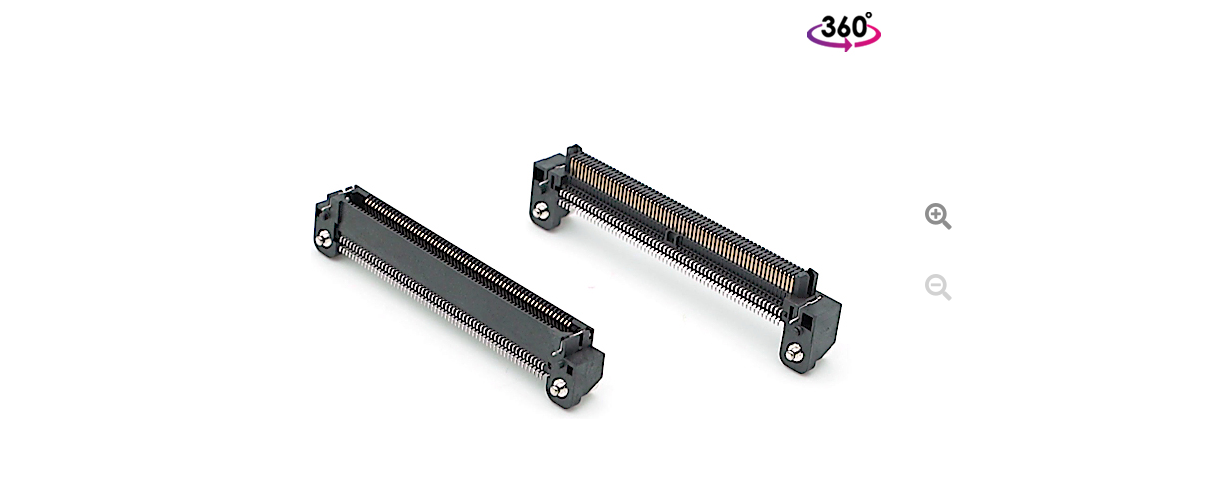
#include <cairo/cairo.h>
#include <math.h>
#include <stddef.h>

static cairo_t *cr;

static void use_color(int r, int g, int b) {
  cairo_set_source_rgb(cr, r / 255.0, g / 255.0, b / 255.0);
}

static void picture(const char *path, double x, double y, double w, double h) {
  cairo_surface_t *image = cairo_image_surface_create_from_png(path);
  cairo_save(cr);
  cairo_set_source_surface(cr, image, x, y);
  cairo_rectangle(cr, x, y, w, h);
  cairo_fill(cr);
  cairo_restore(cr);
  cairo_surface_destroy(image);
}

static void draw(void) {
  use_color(255, 255, 255);
  cairo_paint(cr);
  picture("img_01.png", 311, 12, 570, 407);
  picture("img_02.png", 925, 203, 27, 27);
  picture("img_03.png", 925, 274, 27, 27);
}

int main(void) {
  cairo_surface_t *surface = cairo_image_surface_create(CAIRO_FORMAT_RGB24, 1222, 504);
  cr = cairo_create(surface);
  cairo_font_options_t *options = cairo_font_options_create();
  cairo_font_options_set_hint_metrics(options, CAIRO_HINT_METRICS_OFF);
  cairo_font_options_set_hint_style(options, CAIRO_HINT_STYLE_NONE);
  cairo_set_font_options(cr, options);
  cairo_set_miter_limit(cr, 4);
  draw();
  cairo_surface_write_to_png(surface, "out.png");
  cairo_font_options_destroy(options);
  cairo_destroy(cr);
  cairo_surface_destroy(surface);
  return 0;
}
